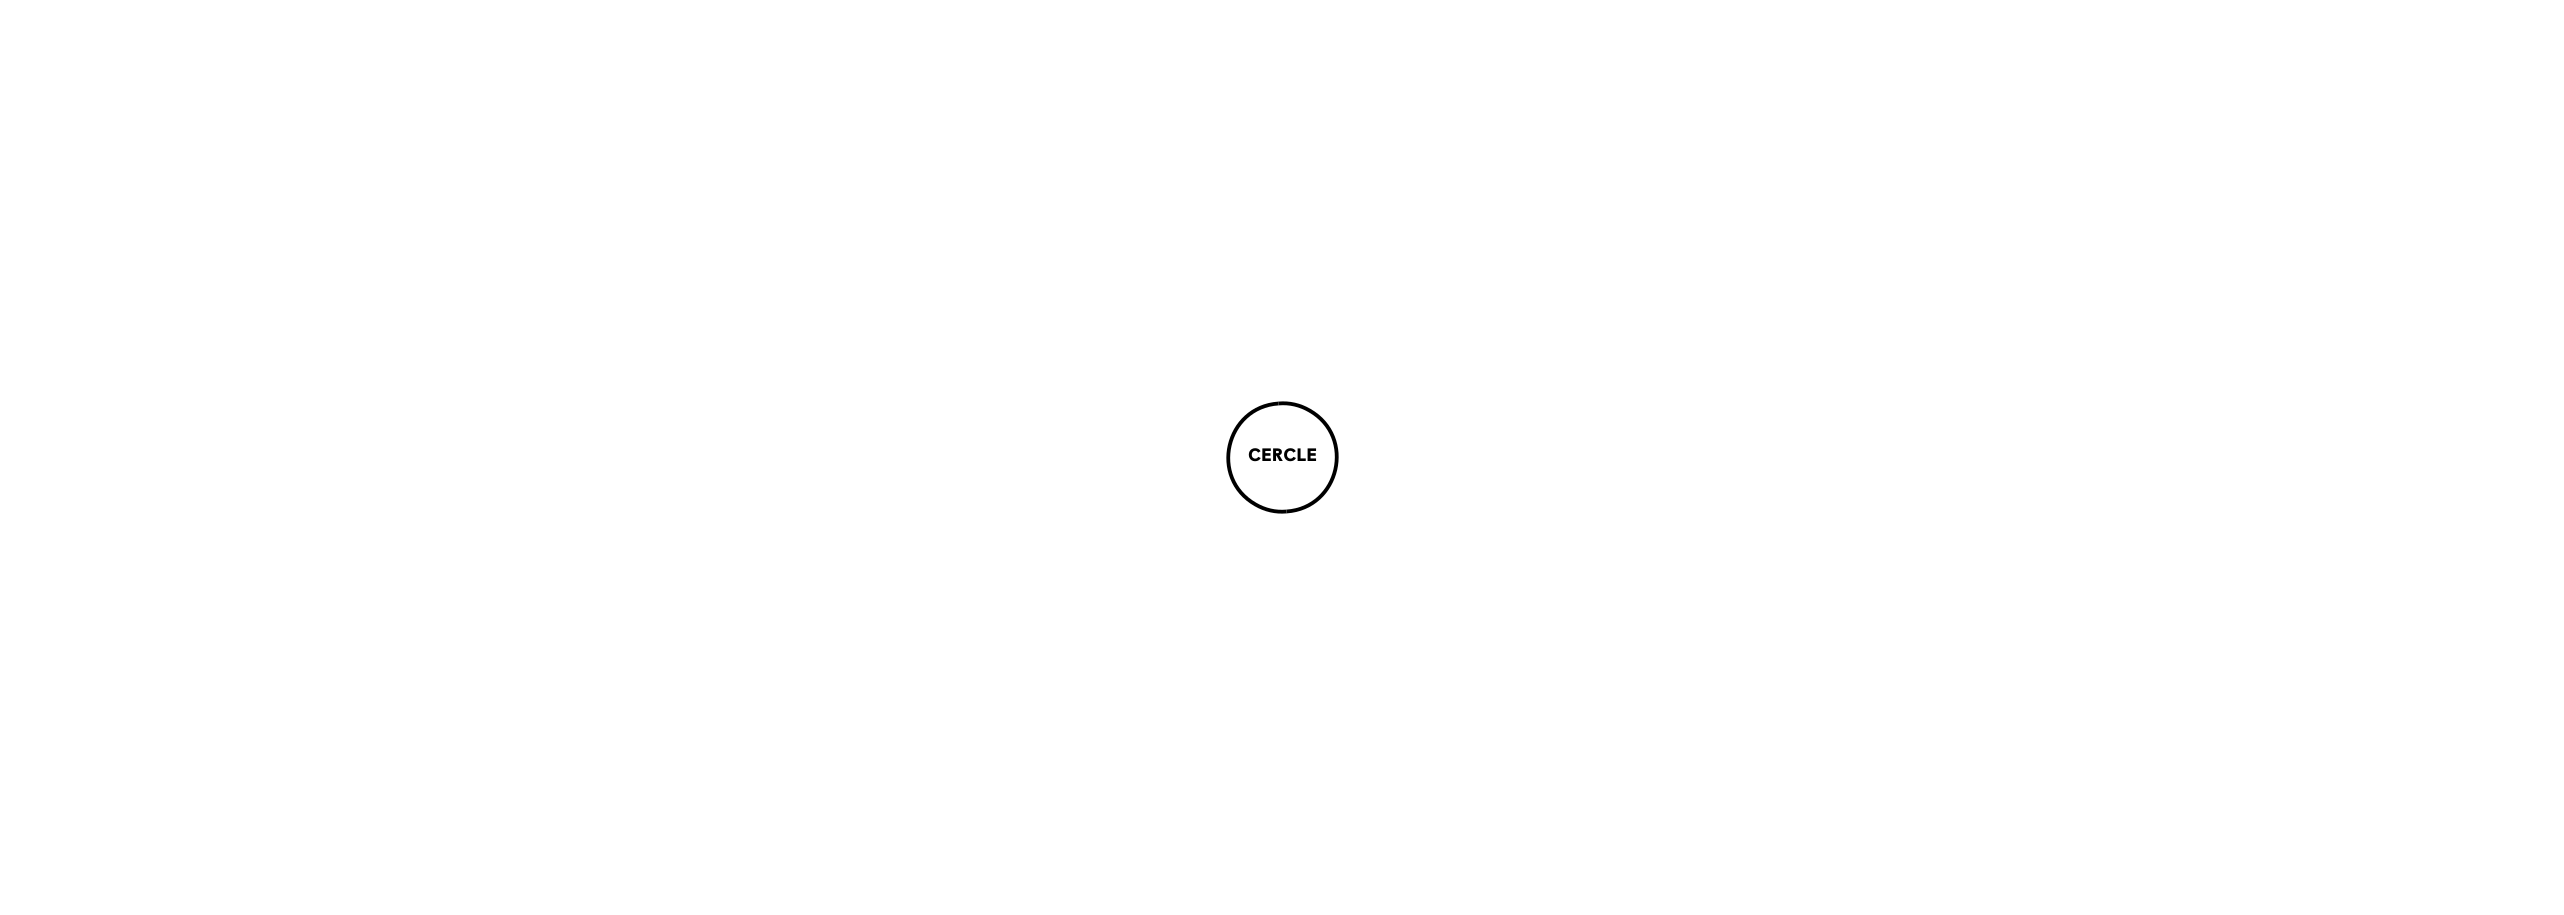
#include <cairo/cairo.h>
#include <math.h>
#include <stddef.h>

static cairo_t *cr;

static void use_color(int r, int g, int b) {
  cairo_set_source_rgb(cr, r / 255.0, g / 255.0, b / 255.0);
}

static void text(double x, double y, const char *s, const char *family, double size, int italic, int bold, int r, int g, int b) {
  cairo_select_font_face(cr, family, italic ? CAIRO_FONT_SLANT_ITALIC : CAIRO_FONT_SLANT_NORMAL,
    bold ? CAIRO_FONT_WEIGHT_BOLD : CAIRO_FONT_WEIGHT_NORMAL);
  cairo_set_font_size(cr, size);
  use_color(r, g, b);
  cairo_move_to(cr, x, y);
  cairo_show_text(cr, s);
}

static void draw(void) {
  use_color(255, 255, 255);
  cairo_paint(cr);
  cairo_new_path(cr);
  cairo_move_to(cr, 1278.5, 403.5);
  cairo_curve_to(cr, 1289.5, 402.5, 1300, 405, 1309.5, 410.5);
  cairo_curve_to(cr, 1356, 437, 1339.5, 508, 1286.5, 511.5);
  use_color(0, 0, 0);
  cairo_set_line_width(cr, 3.8);
  cairo_stroke(cr);
  cairo_new_path(cr);
  cairo_move_to(cr, 1286.5, 511.5);
  cairo_curve_to(cr, 1275.5, 512.5, 1265, 510, 1255.5, 504.5);
  cairo_curve_to(cr, 1209, 478, 1225.5, 407, 1278.5, 403.5);
  cairo_stroke(cr);
  text(1248, 461, "CERCLE", "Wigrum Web", 18, 0, 1, 0, 0, 0);
}

int main(void) {
  cairo_surface_t *surface = cairo_image_surface_create(CAIRO_FORMAT_RGB24, 2564, 915);
  cr = cairo_create(surface);
  cairo_font_options_t *options = cairo_font_options_create();
  cairo_font_options_set_hint_metrics(options, CAIRO_HINT_METRICS_OFF);
  cairo_font_options_set_hint_style(options, CAIRO_HINT_STYLE_NONE);
  cairo_set_font_options(cr, options);
  cairo_set_miter_limit(cr, 4);
  draw();
  cairo_surface_write_to_png(surface, "out.png");
  cairo_font_options_destroy(options);
  cairo_destroy(cr);
  cairo_surface_destroy(surface);
  return 0;
}
